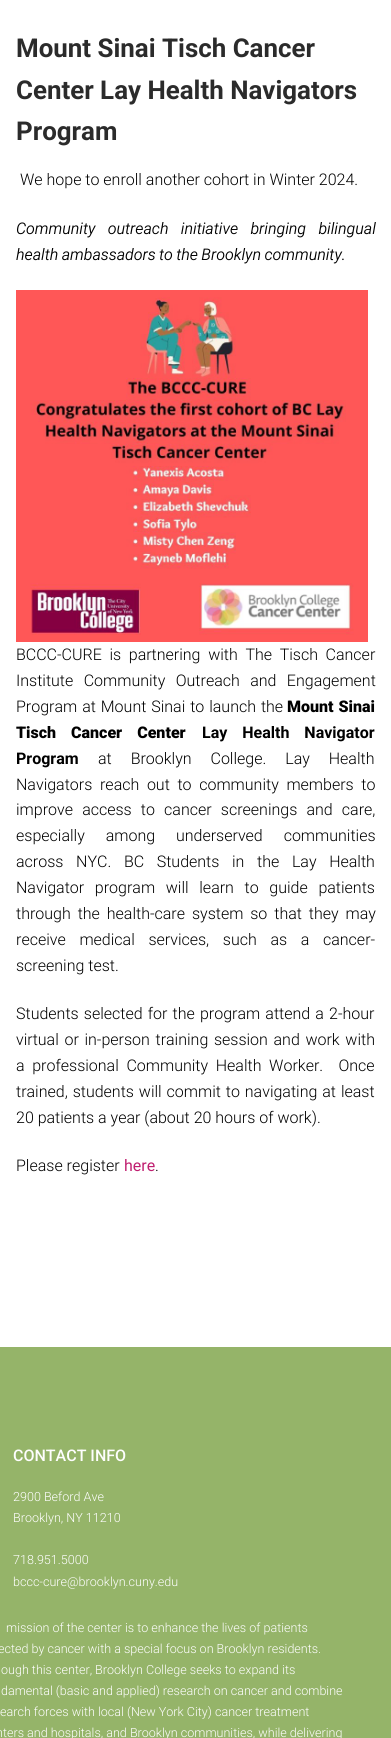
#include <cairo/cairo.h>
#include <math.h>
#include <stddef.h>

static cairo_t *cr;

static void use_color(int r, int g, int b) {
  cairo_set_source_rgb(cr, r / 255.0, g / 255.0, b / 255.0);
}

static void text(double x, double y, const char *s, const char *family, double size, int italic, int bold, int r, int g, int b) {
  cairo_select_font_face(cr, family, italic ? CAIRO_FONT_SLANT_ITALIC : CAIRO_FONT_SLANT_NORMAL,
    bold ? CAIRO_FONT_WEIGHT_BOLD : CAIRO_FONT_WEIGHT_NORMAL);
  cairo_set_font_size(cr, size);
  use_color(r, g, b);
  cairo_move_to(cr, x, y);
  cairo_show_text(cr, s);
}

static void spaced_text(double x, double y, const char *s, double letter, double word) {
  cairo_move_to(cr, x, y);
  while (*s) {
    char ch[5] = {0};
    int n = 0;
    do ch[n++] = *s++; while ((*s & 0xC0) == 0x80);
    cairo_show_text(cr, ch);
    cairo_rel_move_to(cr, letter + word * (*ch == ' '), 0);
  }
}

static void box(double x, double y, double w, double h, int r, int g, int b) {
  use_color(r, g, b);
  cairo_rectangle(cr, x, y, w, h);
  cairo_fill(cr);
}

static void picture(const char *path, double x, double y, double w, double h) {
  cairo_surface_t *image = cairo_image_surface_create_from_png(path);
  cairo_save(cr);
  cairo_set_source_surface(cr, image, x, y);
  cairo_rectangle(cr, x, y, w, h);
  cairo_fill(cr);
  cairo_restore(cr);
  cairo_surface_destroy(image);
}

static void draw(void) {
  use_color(255, 255, 255);
  cairo_paint(cr);
  picture("img_01.png", 16, 290, 352, 352);
  box(0, 1347, 391, 391, 149, 180, 105);
  text(16, 57, "Mount Sinai Tisch Cancer", "Roboto", 25.9, 0, 1, 43, 43, 43);
  text(16, 99, "Center Lay Health Navigators", "Roboto", 25.9, 0, 1, 43, 43, 43);
  text(16, 140, "Program", "Roboto", 25.9, 0, 1, 43, 43, 43);
  text(20, 185, "We hope to enroll another cohort in Winter 2024.", "Roboto Light", 16, 0, 0, 0, 0, 0);
  cairo_select_font_face(cr, "Roboto Light", CAIRO_FONT_SLANT_ITALIC, CAIRO_FONT_WEIGHT_NORMAL);
  spaced_text(16, 234, "Community outreach initiative bringing bilingual", 0, 8.5);
  spaced_text(16, 260, "health ambassadors to the Brooklyn community.", 0, -0.5);
  cairo_select_font_face(cr, "Roboto Light", CAIRO_FONT_SLANT_NORMAL, CAIRO_FONT_WEIGHT_NORMAL);
  spaced_text(16, 660, "BCCC-CURE is partnering with The Tisch Cancer", 0, 3.75);
  spaced_text(16, 686, "Institute Community Outreach and Engagement", 0, 6.5);
  spaced_text(16, 712, "Program at Mount Sinai to launch the", 0, 1);
  cairo_select_font_face(cr, "Roboto Black", CAIRO_FONT_SLANT_NORMAL, CAIRO_FONT_WEIGHT_NORMAL);
  spaced_text(287, 712, "Mount Sinai", 0, 1);
  spaced_text(16, 738, "Tisch Cancer Center", 0, 11);
  cairo_select_font_face(cr, "Roboto", CAIRO_FONT_SLANT_NORMAL, CAIRO_FONT_WEIGHT_BOLD);
  spaced_text(202, 738, "Lay Health Navigator", 0, 11);
  text(16, 764, "Program", "Roboto", 16, 0, 1, 0, 0, 0);
  cairo_select_font_face(cr, "Roboto Light", CAIRO_FONT_SLANT_NORMAL, CAIRO_FONT_WEIGHT_NORMAL);
  spaced_text(98, 764, "at Brooklyn College. Lay Health", 0, 15);
  spaced_text(16, 790, "Navigators reach out to community members to", 0, 3.75);
  spaced_text(16, 815, "improve access to cancer screenings and care,", 0, 5.25);
  spaced_text(16, 841, "especially among underserved communities", 0, 17);
  spaced_text(16, 867, "across NYC. BC Students in the Lay Health", 0, 8.75);
  spaced_text(16, 893, "Navigator program will learn to guide patients", 0, 6.75);
  spaced_text(16, 919, "through the health-care system so that they may", 0, 3);
  spaced_text(16, 945, "receive medical services, such as a cancer-", 0, 9.75);
  text(16, 971, "screening test.", "Roboto Light", 16, 0, 0, 0, 0, 0);
  spaced_text(16, 1019, "Students selected for the program attend a 2-hour", 0, 1.25);
  spaced_text(16, 1045, "virtual or in-person training session and work with", 0, 1.75);
  spaced_text(16, 1071, "a professional Community Health Worker.  Once", 0, 3.75);
  spaced_text(16, 1097, "trained, students will commit to navigating at least", 0, 1);
  text(16, 1123, "20 patients a year (about 20 hours of work).", "Roboto Light", 16, 0, 0, 0, 0, 0);
  text(16, 1171, "Please register", "Roboto Light", 16, 0, 0, 0, 0, 0);
  text(124, 1171, "here", "Roboto", 16, 0, 0, 192, 31, 112);
  text(155, 1171, ".", "Roboto Light", 16, 0, 0, 0, 0, 0);
  text(13, 1461, "CONTACT INFO", "Roboto Medium", 16, 0, 0, 254, 254, 254);
  text(13, 1501, "2900 Beford Ave", "Roboto Light", 12.55, 0, 0, 254, 254, 254);
  text(13, 1522, "Brooklyn, NY 11210", "Roboto Light", 12.55, 0, 0, 254, 254, 254);
  text(13, 1564, "718.951.5000", "Roboto Light", 12.55, 0, 0, 254, 254, 254);
  text(13, 1586, "bccc-cure@brooklyn.cuny.edu", "Roboto Light", 12.55, 0, 0, 254, 254, 254);
  text(6, 1632, "mission of the center is to enhance the lives of patients", "Roboto Light", 12.55, 0, 0, 254, 254, 254);
  text(-2, 1653, "ected by cancer with a special focus on Brooklyn residents.", "Roboto Light", 12.55, 0, 0, 254, 254, 254);
  text(1, 1674, "ough this center, Brooklyn College seeks to expand its", "Roboto Light", 12.55, 0, 0, 254, 254, 254);
  text(1, 1695, "damental (basic and applied) research on cancer and combine", "Roboto Light", 12.55, 0, 0, 254, 254, 254);
  text(0, 1716, "earch forces with local (New York City) cancer treatment", "Roboto Light", 12.55, 0, 0, 254, 254, 254);
  text(-4, 1737, "nters and hospitals, and Brooklyn communities, while delivering", "Roboto Light", 12.55, 0, 0, 254, 254, 254);
}

int main(void) {
  cairo_surface_t *surface = cairo_image_surface_create(CAIRO_FORMAT_RGB24, 391, 1738);
  cr = cairo_create(surface);
  cairo_font_options_t *options = cairo_font_options_create();
  cairo_font_options_set_hint_metrics(options, CAIRO_HINT_METRICS_OFF);
  cairo_font_options_set_hint_style(options, CAIRO_HINT_STYLE_NONE);
  cairo_set_font_options(cr, options);
  cairo_set_miter_limit(cr, 4);
  draw();
  cairo_surface_write_to_png(surface, "out.png");
  cairo_font_options_destroy(options);
  cairo_destroy(cr);
  cairo_surface_destroy(surface);
  return 0;
}
